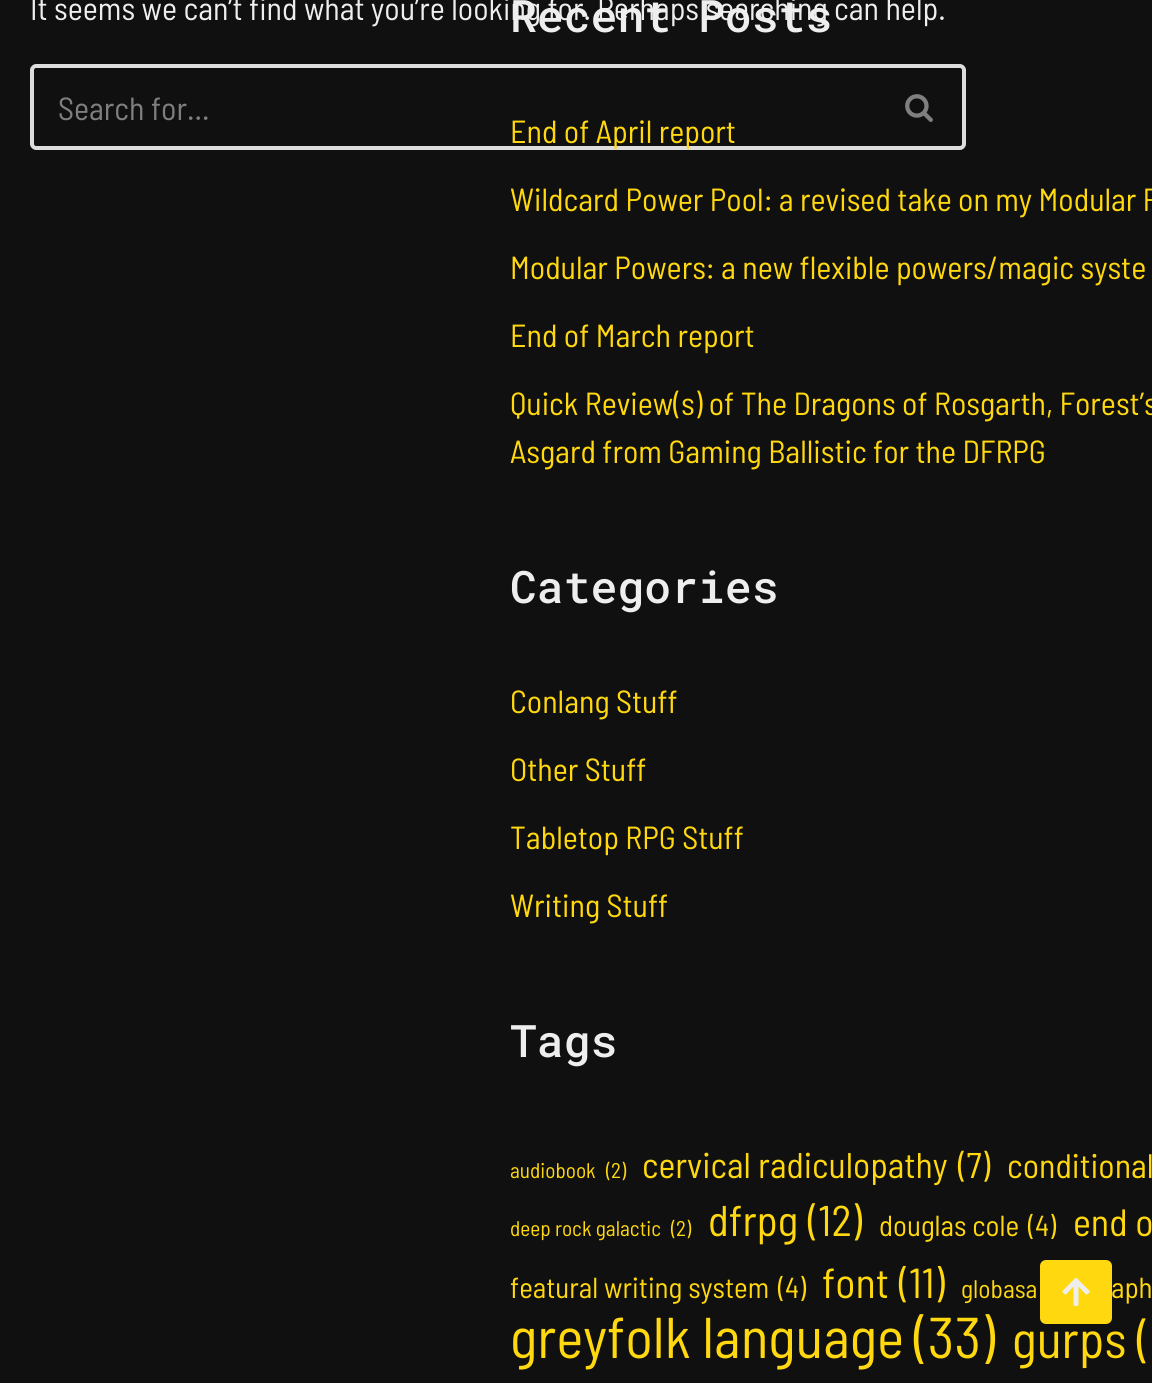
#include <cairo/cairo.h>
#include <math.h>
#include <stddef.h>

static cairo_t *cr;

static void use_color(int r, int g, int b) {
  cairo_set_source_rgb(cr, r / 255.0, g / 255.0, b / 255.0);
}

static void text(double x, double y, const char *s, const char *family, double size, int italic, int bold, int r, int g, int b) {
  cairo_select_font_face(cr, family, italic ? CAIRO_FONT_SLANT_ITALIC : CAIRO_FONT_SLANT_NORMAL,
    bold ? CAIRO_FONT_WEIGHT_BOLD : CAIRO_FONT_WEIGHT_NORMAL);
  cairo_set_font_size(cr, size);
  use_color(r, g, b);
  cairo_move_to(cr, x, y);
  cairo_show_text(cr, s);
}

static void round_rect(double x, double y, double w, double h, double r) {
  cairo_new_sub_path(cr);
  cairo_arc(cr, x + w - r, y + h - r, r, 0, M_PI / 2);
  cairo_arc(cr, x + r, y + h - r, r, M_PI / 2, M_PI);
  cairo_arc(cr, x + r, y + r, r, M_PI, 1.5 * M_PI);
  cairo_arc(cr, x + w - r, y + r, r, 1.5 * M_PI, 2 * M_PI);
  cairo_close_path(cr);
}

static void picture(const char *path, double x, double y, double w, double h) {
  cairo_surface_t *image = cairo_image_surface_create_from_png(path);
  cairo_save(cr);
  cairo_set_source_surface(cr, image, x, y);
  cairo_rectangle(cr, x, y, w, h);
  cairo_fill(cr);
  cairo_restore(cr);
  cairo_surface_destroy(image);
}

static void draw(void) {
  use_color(16, 16, 16);
  cairo_paint(cr);
  use_color(221, 221, 221);
  cairo_set_fill_rule(cr, CAIRO_FILL_RULE_EVEN_ODD);
  cairo_new_path(cr);
  cairo_move_to(cr, 36, 64);
  cairo_line_to(cr, 876, 64);
  cairo_line_to(cr, 876, 150);
  cairo_line_to(cr, 36, 150);
  cairo_curve_to(cr, 33, 150, 30, 147, 30, 144);
  cairo_line_to(cr, 30, 70);
  cairo_curve_to(cr, 30, 67, 33, 64, 36, 64);
  cairo_close_path(cr);
  cairo_move_to(cr, 36, 68);
  cairo_line_to(cr, 876, 68);
  cairo_line_to(cr, 876, 146);
  cairo_line_to(cr, 36, 146);
  cairo_curve_to(cr, 35, 146, 34, 145, 34, 144);
  cairo_line_to(cr, 34, 70);
  cairo_curve_to(cr, 34, 69, 35, 68, 36, 68);
  cairo_close_path(cr);
  cairo_fill(cr);
  cairo_new_path(cr);
  cairo_move_to(cr, 876, 64);
  cairo_line_to(cr, 960, 64);
  cairo_curve_to(cr, 963, 64, 966, 67, 966, 70);
  cairo_line_to(cr, 966, 144);
  cairo_curve_to(cr, 966, 147, 963, 150, 960, 150);
  cairo_line_to(cr, 876, 150);
  cairo_close_path(cr);
  cairo_move_to(cr, 876, 68);
  cairo_line_to(cr, 960, 68);
  cairo_curve_to(cr, 961, 68, 962, 69, 962, 70);
  cairo_line_to(cr, 962, 144);
  cairo_curve_to(cr, 962, 145, 961, 146, 960, 146);
  cairo_line_to(cr, 876, 146);
  cairo_close_path(cr);
  cairo_fill(cr);
  picture("img_01.png", 905, 94, 28, 28);
  use_color(255, 216, 15);
  round_rect(1040, 1260, 72, 64, 6);
  cairo_fill(cr);
  picture("img_02.png", 1062, 1278, 28, 28);
  text(30, 20, "It seems we can’t find what you’re looking for. Perhaps searching can help.", "Barlow Semi Condensed", 32, 0, 0, 238, 238, 238);
  text(58, 120, "Search for...", "Barlow Semi Condensed", 32, 0, 0, 127, 127, 127);
  text(510, 32, "Recent Posts", "Roboto Mono Medium", 44.75, 0, 0, 238, 238, 238);
  text(510, 143, "End of April report", "Barlow Semi Condensed", 32, 0, 0, 255, 216, 15);
  text(510, 211, "Wildcard Power Pool: a revised take on my Modular P", "Barlow Semi Condensed", 32, 0, 0, 255, 216, 15);
  text(510, 279, "Modular Powers: a new flexible powers/magic syste", "Barlow Semi Condensed", 32, 0, 0, 255, 216, 15);
  text(510, 347, "End of March report", "Barlow Semi Condensed", 32, 0, 0, 255, 216, 15);
  text(510, 415, "Quick Review(s) of The Dragons of Rosgarth, Forest’s", "Barlow Semi Condensed", 32, 0, 0, 255, 216, 15);
  text(510, 463, "Asgard from Gaming Ballistic for the DFRPG", "Barlow Semi Condensed", 32, 0, 0, 255, 216, 15);
  text(510, 603, "Categories", "Roboto Mono Medium", 44.75, 0, 0, 238, 238, 238);
  text(510, 713, "Conlang Stuff", "Barlow Semi Condensed", 32, 0, 0, 255, 216, 15);
  text(510, 781, "Other Stuff", "Barlow Semi Condensed", 32, 0, 0, 255, 216, 15);
  text(510, 849, "Tabletop RPG Stuff", "Barlow Semi Condensed", 32, 0, 0, 255, 216, 15);
  text(510, 917, "Writing Stuff", "Barlow Semi Condensed", 32, 0, 0, 255, 216, 15);
  text(510, 1057, "Tags", "Roboto Mono Medium", 44.75, 0, 0, 238, 238, 238);
  text(510, 1178, "audiobook", "Barlow Semi Condensed", 21.25, 0, 0, 255, 216, 15);
  text(606, 1178, "(2)", "Barlow Semi Condensed", 21.25, 0, 0, 255, 216, 15);
  text(642, 1178, "cervical radiculopathy", "Barlow Semi Condensed", 35.75, 0, 0, 255, 216, 15);
  text(958, 1178, "(7)", "Barlow Semi Condensed", 35.75, 0, 0, 255, 216, 15);
  text(1007, 1178, "conditional", "Barlow Semi Condensed", 34, 0, 0, 255, 216, 15);
  text(510, 1236, "deep rock galactic", "Barlow Semi Condensed", 21.25, 0, 0, 255, 216, 15);
  text(671, 1236, "(2)", "Barlow Semi Condensed", 21.25, 0, 0, 255, 216, 15);
  text(708, 1236, "dfrpg", "Barlow Semi Condensed", 43, 0, 0, 255, 216, 15);
  text(808, 1236, "(12)", "Barlow Semi Condensed", 43, 0, 0, 255, 216, 15);
  text(879, 1236, "douglas cole", "Barlow Semi Condensed", 29, 0, 0, 255, 216, 15);
  text(1028, 1236, "(4)", "Barlow Semi Condensed", 29, 0, 0, 255, 216, 15);
  text(1073, 1236, "end o", "Barlow Semi Condensed", 38, 0, 0, 255, 216, 15);
  text(510, 1298, "featural writing system", "Barlow Semi Condensed", 29, 0, 0, 255, 216, 15);
  text(778, 1298, "(4)", "Barlow Semi Condensed", 29, 0, 0, 255, 216, 15);
  text(822, 1298, "font", "Barlow Semi Condensed", 42, 0, 0, 255, 216, 15);
  text(899, 1298, "(11)", "Barlow Semi Condensed", 42, 0, 0, 255, 216, 15);
  text(961, 1298, "globasa", "Barlow Semi Condensed", 25.5, 0, 0, 255, 216, 15);
  text(1111, 1298, "aph", "Barlow Semi Condensed", 29, 0, 0, 255, 216, 15);
  text(510, 1358, "greyfolk language", "Barlow Semi Condensed", 57.5, 0, 0, 255, 216, 15);
  text(914, 1358, "(33)", "Barlow Semi Condensed", 57.5, 0, 0, 255, 216, 15);
  text(1012, 1358, "gurps", "Barlow Semi Condensed", 52, 0, 0, 255, 216, 15);
  text(1137, 1358, "(", "Barlow Semi Condensed", 52, 0, 0, 255, 216, 15);
}

int main(void) {
  cairo_surface_t *surface = cairo_image_surface_create(CAIRO_FORMAT_RGB24, 1152, 1383);
  cr = cairo_create(surface);
  cairo_font_options_t *options = cairo_font_options_create();
  cairo_font_options_set_hint_metrics(options, CAIRO_HINT_METRICS_OFF);
  cairo_font_options_set_hint_style(options, CAIRO_HINT_STYLE_NONE);
  cairo_set_font_options(cr, options);
  cairo_set_miter_limit(cr, 4);
  draw();
  cairo_surface_write_to_png(surface, "out.png");
  cairo_font_options_destroy(options);
  cairo_destroy(cr);
  cairo_surface_destroy(surface);
  return 0;
}
